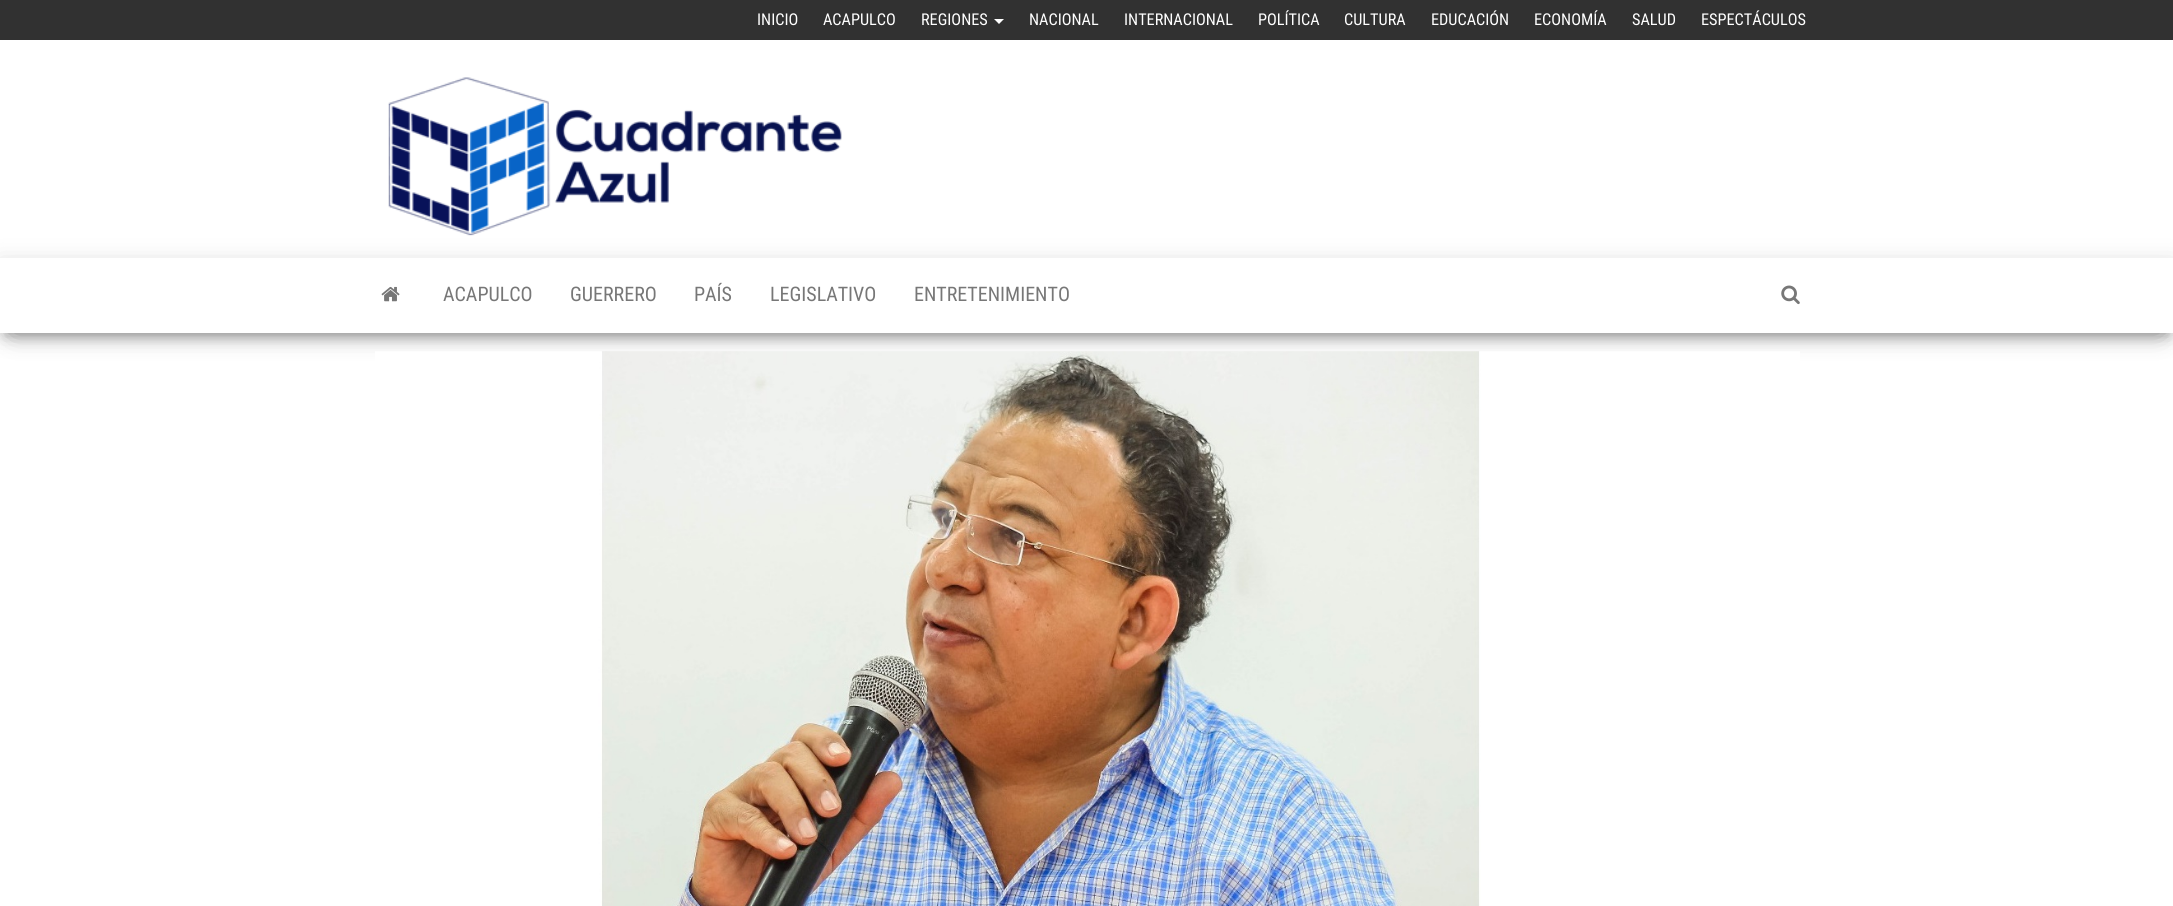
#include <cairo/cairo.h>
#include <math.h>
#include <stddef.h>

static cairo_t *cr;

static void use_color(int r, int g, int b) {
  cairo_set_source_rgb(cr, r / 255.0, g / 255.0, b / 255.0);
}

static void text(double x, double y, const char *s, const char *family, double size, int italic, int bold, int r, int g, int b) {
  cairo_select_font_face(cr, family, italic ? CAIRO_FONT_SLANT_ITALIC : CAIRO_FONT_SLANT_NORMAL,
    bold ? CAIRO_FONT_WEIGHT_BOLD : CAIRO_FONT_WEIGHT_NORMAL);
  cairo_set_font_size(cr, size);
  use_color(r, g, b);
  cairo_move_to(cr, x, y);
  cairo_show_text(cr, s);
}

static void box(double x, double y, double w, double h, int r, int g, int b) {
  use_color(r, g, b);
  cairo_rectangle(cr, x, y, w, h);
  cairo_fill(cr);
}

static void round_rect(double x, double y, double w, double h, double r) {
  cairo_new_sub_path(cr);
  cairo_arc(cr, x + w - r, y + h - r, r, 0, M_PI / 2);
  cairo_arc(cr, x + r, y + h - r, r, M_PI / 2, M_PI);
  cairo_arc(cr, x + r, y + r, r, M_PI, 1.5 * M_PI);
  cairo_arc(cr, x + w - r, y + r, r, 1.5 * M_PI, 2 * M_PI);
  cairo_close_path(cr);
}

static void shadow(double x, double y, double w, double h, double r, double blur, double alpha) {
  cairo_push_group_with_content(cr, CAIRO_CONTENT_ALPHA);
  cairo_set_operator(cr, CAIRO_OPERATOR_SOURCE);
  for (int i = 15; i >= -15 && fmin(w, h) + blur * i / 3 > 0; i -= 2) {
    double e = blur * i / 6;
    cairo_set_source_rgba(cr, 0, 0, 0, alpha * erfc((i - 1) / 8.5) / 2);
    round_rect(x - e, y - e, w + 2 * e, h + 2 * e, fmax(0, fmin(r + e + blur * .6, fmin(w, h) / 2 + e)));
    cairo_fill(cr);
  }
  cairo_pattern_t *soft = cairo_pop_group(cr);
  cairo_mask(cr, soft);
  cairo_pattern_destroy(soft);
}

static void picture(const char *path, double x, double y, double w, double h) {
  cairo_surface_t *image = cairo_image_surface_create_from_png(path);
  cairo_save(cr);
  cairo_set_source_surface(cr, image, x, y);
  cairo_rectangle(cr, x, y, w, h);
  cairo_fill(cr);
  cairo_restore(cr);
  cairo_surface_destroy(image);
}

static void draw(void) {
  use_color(255, 255, 255);
  cairo_paint(cr);
  box(0, 0, 2173, 40, 49, 49, 49);
  use_color(255, 255, 255);
  cairo_new_path(cr);
  cairo_move_to(cr, 994, 19);
  cairo_line_to(cr, 1004, 19);
  cairo_line_to(cr, 999, 24);
  cairo_close_path(cr);
  cairo_fill(cr);
  use_color(0, 0, 0);
  shadow(0, 261, 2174, 75, 0, 12.5, 0.12);
  picture("img_01.png", 388, 77, 454, 159);
  shadow(6, 274, 2162, 62, 0, 6, 0.2);
  shadow(15, 285, 2144, 45, 0, 12.5, 0.42);
  box(0, 258, 2173, 75, 255, 255, 255);
  picture("img_02.png", 381, 286, 19, 16);
  picture("img_03.png", 1781, 285, 19, 20);
  picture("img_04.png", 375, 351, 1425, 555);
  text(757, 25, "INICIO", "Roboto Condensed", 16.25, 0, 0, 255, 255, 255);
  text(823, 25, "ACAPULCO", "Roboto Condensed", 16.25, 0, 0, 255, 255, 255);
  text(921, 25, "REGIONES", "Roboto Condensed", 16.25, 0, 0, 255, 255, 255);
  text(1029, 25, "NACIONAL", "Roboto Condensed", 16.25, 0, 0, 255, 255, 255);
  text(1124, 25, "INTERNACIONAL", "Roboto Condensed", 16.25, 0, 0, 255, 255, 255);
  text(1258, 25, "POLÍTICA", "Roboto Condensed", 16.25, 0, 0, 255, 255, 255);
  text(1344, 25, "CULTURA", "Roboto Condensed", 16.25, 0, 0, 255, 255, 255);
  text(1431, 25, "EDUCACIÓN", "Roboto Condensed", 16.25, 0, 0, 255, 255, 255);
  text(1534, 25, "ECONOMÍA", "Roboto Condensed", 16.25, 0, 0, 255, 255, 255);
  text(1632, 25, "SALUD", "Roboto Condensed", 16.25, 0, 0, 255, 255, 255);
  text(1701, 25, "ESPECTÁCULOS", "Roboto Condensed", 16.25, 0, 0, 255, 255, 255);
  text(443, 301, "ACAPULCO", "Roboto Condensed", 20, 0, 0, 119, 119, 119);
  text(570, 301, "GUERRERO", "Roboto Condensed", 20, 0, 0, 119, 119, 119);
  text(694, 301, "PAÍS", "Roboto Condensed", 20, 0, 0, 119, 119, 119);
  text(770, 301, "LEGISLATIVO", "Roboto Condensed", 20, 0, 0, 119, 119, 119);
  text(914, 301, "ENTRETENIMIENTO", "Roboto Condensed", 20, 0, 0, 119, 119, 119);
}

int main(void) {
  cairo_surface_t *surface = cairo_image_surface_create(CAIRO_FORMAT_RGB24, 2173, 906);
  cr = cairo_create(surface);
  cairo_font_options_t *options = cairo_font_options_create();
  cairo_font_options_set_hint_metrics(options, CAIRO_HINT_METRICS_OFF);
  cairo_font_options_set_hint_style(options, CAIRO_HINT_STYLE_NONE);
  cairo_set_font_options(cr, options);
  cairo_set_miter_limit(cr, 4);
  draw();
  cairo_surface_write_to_png(surface, "out.png");
  cairo_font_options_destroy(options);
  cairo_destroy(cr);
  cairo_surface_destroy(surface);
  return 0;
}
